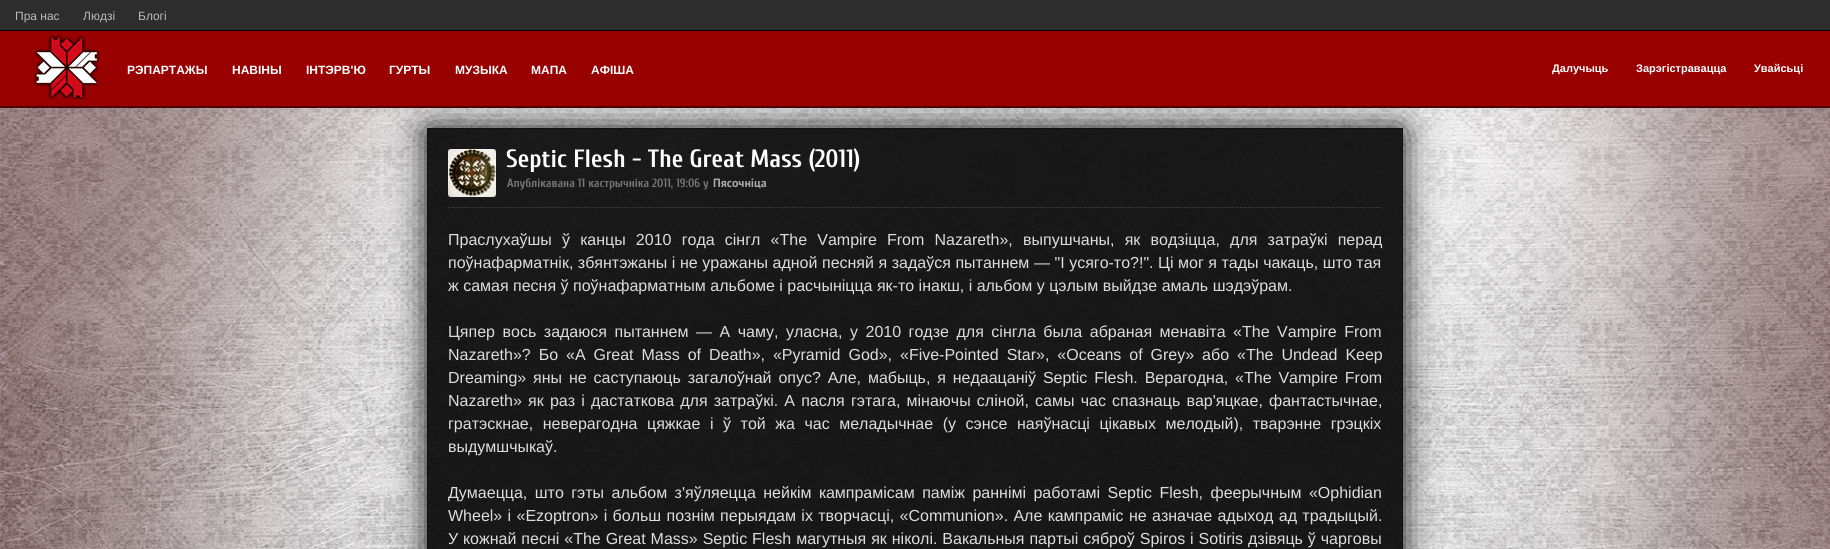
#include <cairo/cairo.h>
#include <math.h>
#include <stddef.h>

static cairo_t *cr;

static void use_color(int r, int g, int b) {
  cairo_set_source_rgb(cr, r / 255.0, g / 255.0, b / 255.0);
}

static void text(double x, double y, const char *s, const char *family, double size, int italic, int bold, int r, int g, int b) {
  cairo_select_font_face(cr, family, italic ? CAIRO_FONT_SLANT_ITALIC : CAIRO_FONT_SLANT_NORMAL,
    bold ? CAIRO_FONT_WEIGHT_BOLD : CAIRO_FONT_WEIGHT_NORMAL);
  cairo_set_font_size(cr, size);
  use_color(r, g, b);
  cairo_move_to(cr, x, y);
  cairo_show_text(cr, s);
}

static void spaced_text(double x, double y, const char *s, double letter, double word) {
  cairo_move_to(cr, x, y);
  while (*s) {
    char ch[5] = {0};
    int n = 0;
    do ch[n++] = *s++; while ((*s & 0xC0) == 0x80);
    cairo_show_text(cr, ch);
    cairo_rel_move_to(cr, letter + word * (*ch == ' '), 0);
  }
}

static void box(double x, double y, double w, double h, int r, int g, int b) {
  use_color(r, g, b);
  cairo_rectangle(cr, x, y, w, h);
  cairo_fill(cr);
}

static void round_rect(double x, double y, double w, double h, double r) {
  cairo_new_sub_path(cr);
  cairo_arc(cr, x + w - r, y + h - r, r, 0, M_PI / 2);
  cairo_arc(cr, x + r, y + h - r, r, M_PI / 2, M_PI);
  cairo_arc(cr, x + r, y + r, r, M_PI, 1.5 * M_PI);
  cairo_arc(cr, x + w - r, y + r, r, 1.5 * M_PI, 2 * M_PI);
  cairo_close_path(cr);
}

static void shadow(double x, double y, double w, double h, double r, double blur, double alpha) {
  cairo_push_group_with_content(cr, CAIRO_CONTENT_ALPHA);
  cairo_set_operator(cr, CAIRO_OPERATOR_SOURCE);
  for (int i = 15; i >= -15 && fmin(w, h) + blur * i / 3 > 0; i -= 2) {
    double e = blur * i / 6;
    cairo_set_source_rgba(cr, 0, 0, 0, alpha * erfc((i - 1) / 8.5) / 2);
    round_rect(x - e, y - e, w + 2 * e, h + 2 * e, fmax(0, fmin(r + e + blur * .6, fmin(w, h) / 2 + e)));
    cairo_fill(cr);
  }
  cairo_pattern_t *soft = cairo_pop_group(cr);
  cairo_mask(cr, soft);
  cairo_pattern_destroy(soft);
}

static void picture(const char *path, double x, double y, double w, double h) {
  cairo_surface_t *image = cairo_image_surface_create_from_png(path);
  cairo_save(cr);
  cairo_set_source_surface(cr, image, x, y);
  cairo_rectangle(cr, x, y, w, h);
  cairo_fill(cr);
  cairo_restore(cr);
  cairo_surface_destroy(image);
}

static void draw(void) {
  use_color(255, 255, 255);
  cairo_paint(cr);
  picture("img_01.png", 0, 108, 1830, 441);
  box(0, 0, 1830, 30, 45, 45, 45);
  box(0, 30, 1830, 1, 0, 0, 0);
  cairo_save(cr);
  cairo_set_fill_rule(cr, CAIRO_FILL_RULE_EVEN_ODD);
  cairo_new_path(cr);
  cairo_move_to(cr, 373, 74);
  cairo_line_to(cr, 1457, 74);
  cairo_line_to(cr, 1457, 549);
  cairo_line_to(cr, 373, 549);
  cairo_close_path(cr);
  cairo_move_to(cr, 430, 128);
  cairo_line_to(cr, 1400, 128);
  cairo_curve_to(cr, 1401.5, 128, 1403, 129.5, 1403, 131);
  cairo_line_to(cr, 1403, 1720);
  cairo_curve_to(cr, 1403, 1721.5, 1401.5, 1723, 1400, 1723);
  cairo_line_to(cr, 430, 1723);
  cairo_curve_to(cr, 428.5, 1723, 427, 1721.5, 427, 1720);
  cairo_line_to(cr, 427, 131);
  cairo_curve_to(cr, 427, 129.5, 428.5, 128, 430, 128);
  cairo_close_path(cr);
  cairo_clip(cr);
  use_color(16, 16, 16);
  shadow(427, 128, 976, 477, 3, 17.5, 1);
  cairo_restore(cr);
  box(0, 31, 1830, 75, 153, 0, 0);
  box(0, 106, 1830, 2, 80, 0, 0);
  picture("img_02.png", 34, 35, 66, 65);
  cairo_set_source_rgba(cr, 0, 0, 0, 0.89);
  cairo_rectangle(cr, 427, 128, 976, 421);
  cairo_fill(cr);
  round_rect(427.5, 128.5, 975, 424, 2.5);
  use_color(16, 16, 16);
  cairo_set_line_width(cr, 1);
  cairo_stroke(cr);
  cairo_new_path(cr);
  cairo_move_to(cr, 448, 207.5);
  cairo_line_to(cr, 1382, 207.5);
  use_color(66, 66, 66);
  cairo_set_dash(cr, (double[]){1, 1}, 2, 0);
  cairo_stroke(cr);
  picture("img_03.png", 448, 149, 48, 48);
  text(15, 20, "Пра нас", "Liberation Sans", 12, 0, 0, 187, 187, 187);
  text(83, 20, "Людзі", "Liberation Sans", 12, 0, 0, 187, 187, 187);
  text(138, 20, "Блогі", "Liberation Sans", 12, 0, 0, 187, 187, 187);
  text(127, 74, "РЭПАРТАЖЫ", "Liberation Sans", 12, 0, 1, 255, 255, 255);
  text(232, 74, "НАВІНЫ", "Liberation Sans", 12, 0, 1, 255, 255, 255);
  text(306, 74, "ІНТЭРВ'Ю", "Liberation Sans", 12, 0, 1, 255, 255, 255);
  text(389, 74, "ГУРТЫ", "Liberation Sans", 12, 0, 1, 255, 255, 255);
  text(455, 74, "МУЗЫКА", "Liberation Sans", 12, 0, 1, 255, 255, 255);
  text(531, 74, "МАПА", "Liberation Sans", 12, 0, 1, 255, 255, 255);
  text(591, 74, "АФІША", "Liberation Sans", 12, 0, 1, 255, 255, 255);
  text(1552, 72, "Далучыць", "Liberation Sans", 11, 0, 1, 255, 255, 255);
  text(1636, 72, "Зарэгістравацца", "Liberation Sans", 11, 0, 1, 255, 255, 255);
  text(1754, 72, "Увайсьці", "Liberation Sans", 11, 0, 1, 255, 255, 255);
  text(506, 167, "Septic Flesh - The Great Mass (2011)", "Cuprum", 25, 0, 1, 255, 255, 255);
  text(507, 187, "Апублікавана 11 кастрычніка 2011, 19:06 у", "Cuprum", 12, 0, 1, 119, 119, 119);
  text(713, 187, "Пясочніца", "PT Sans", 12, 0, 1, 170, 170, 170);
  cairo_select_font_face(cr, "Liberation Sans", CAIRO_FONT_SLANT_NORMAL, CAIRO_FONT_WEIGHT_NORMAL);
  cairo_set_font_size(cr, 16);
  use_color(221, 221, 221);
  spaced_text(448, 245, "Праслухаўшы ў канцы 2010 года сінгл «The Vampire From Nazareth», выпушчаны, як водзіцца, для затраўкі перад", 0, 5.75);
  spaced_text(448, 268, "поўнафарматнік, збянтэжаны і не уражаны адной песняй я задаўся пытаннем — \"І усяго-то?!\". Ці мог я тады чакаць, што тая", 0, 0.1);
  text(448, 291, "ж самая песня ў поўнафарматным альбоме і расчыніцца як-то інакш, і альбом у цэлым выйдзе амаль шэдэўрам.", "Liberation Sans", 16, 0, 0, 221, 221, 221);
  spaced_text(448, 337, "Цяпер вось задаюся пытаннем — А чаму, уласна, у 2010 годзе для сінгла была абраная менавіта «The Vampire From", 0, 3.1);
  spaced_text(448, 360, "Nazareth»? Бо «A Great Mass of Death», «Pyramid God», «Five-Pointed Star», «Oceans of Grey» або «The Undead Keep", 0, 3.5);
  spaced_text(448, 383, "Dreaming» яны не саступаюць загалоўнай опус? Але, мабыць, я недаацаніў Septic Flesh. Верагодна, «The Vampire From", 0, 2.4);
  spaced_text(448, 406, "Nazareth» як раз і дастаткова для затраўкі. А пасля гэтага, мінаючы сліной, самы час спазнаць вар'яцкае, фантастычнае,", 0, 1.75);
  spaced_text(448, 429, "гратэскнае, неверагодна цяжкае і ў той жа час меладычнае (у сэнсе наяўнасці цікавых мелодый), тварэнне грэцкіх", 0, 5.1);
  text(448, 452, "выдумшчыкаў.", "Liberation Sans", 16, 0, 0, 221, 221, 221);
  spaced_text(448, 498, "Думаецца, што гэты альбом з'яўляецца нейкім кампрамісам паміж раннімі работамі Septic Flesh, феерычным «Ophidian", 0, 3);
  spaced_text(448, 521, "Wheel» і «Ezoptron» і больш познім перыядам іх творчасці, «Communion». Але кампраміс не азначае адыход ад традыцый.", 0, 0.9);
  spaced_text(448, 544, "У кожнай песні «The Great Mass» Septic Flesh магутныя як ніколі. Вакальныя партыі сяброў Spiros і Sotiris дзівяць ў чарговы", 0, 0.5);
}

int main(void) {
  cairo_surface_t *surface = cairo_image_surface_create(CAIRO_FORMAT_RGB24, 1830, 549);
  cr = cairo_create(surface);
  cairo_font_options_t *options = cairo_font_options_create();
  cairo_font_options_set_hint_metrics(options, CAIRO_HINT_METRICS_OFF);
  cairo_font_options_set_hint_style(options, CAIRO_HINT_STYLE_NONE);
  cairo_set_font_options(cr, options);
  cairo_set_miter_limit(cr, 4);
  draw();
  cairo_surface_write_to_png(surface, "out.png");
  cairo_font_options_destroy(options);
  cairo_destroy(cr);
  cairo_surface_destroy(surface);
  return 0;
}
